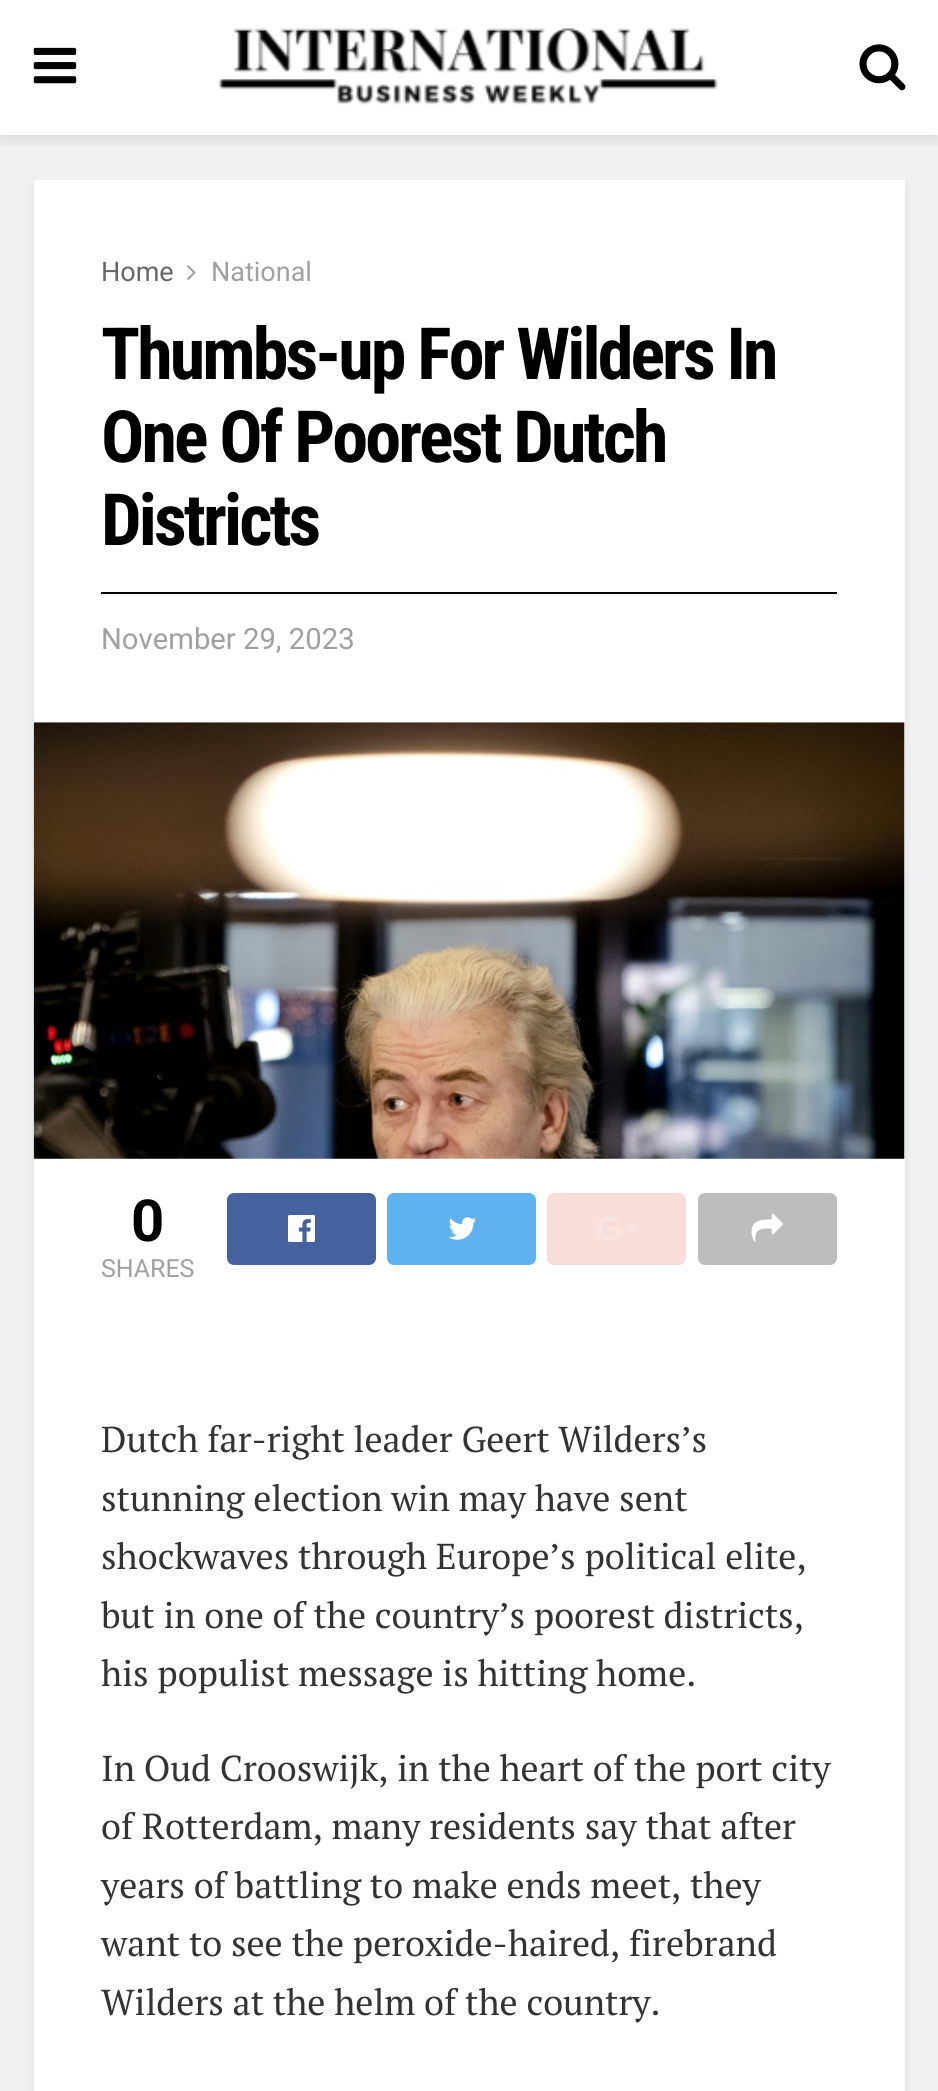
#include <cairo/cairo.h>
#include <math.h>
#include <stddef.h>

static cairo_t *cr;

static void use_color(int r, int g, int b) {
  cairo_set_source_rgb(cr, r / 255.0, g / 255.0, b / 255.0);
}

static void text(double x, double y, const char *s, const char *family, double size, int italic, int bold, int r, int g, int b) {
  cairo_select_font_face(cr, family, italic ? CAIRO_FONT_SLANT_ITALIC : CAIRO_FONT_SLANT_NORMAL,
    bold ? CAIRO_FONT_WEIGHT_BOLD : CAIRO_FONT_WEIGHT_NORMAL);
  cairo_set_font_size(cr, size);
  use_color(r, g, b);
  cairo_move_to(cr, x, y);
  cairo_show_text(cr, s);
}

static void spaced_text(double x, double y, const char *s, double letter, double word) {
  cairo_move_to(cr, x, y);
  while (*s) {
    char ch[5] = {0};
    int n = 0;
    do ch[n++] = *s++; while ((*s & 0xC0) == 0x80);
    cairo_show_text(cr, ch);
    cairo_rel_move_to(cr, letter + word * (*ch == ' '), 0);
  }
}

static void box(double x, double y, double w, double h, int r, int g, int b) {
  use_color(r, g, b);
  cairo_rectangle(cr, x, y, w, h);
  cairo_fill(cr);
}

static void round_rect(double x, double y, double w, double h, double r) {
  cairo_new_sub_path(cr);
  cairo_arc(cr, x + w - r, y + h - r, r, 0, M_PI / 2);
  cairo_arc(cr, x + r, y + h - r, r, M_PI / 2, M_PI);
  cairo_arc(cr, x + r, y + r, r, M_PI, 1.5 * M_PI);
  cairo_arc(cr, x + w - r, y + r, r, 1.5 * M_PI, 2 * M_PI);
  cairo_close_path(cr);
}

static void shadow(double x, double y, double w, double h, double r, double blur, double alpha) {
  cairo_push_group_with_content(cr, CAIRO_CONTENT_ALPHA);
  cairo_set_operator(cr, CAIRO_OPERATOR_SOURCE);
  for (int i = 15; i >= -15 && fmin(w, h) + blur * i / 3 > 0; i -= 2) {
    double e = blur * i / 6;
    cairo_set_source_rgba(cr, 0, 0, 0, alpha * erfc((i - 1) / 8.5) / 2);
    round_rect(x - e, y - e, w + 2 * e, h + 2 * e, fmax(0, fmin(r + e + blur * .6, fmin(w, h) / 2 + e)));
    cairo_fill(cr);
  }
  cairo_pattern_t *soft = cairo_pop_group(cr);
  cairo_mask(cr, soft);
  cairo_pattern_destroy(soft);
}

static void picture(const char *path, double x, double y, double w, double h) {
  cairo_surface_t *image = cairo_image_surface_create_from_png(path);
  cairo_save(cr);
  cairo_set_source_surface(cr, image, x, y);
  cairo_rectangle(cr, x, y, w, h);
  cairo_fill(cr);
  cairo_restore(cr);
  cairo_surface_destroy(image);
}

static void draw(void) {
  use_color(255, 255, 255);
  cairo_paint(cr);
  box(0, 135, 938, 1956, 240, 241, 242);
  cairo_save(cr);
  cairo_rectangle(cr, 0, 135, 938, 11);
  cairo_clip(cr);
  use_color(0, 0, 0);
  shadow(0, 5, 938, 135, 0, 7, 0.1);
  cairo_restore(cr);
  picture("img_01.png", 33, 47, 44, 37);
  picture("img_02.png", 218, 28, 500, 77);
  picture("img_03.png", 859, 44, 47, 47);
  use_color(0, 0, 0);
  shadow(34, 185, 871, 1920, 0, 4.5, 0.08);
  box(34, 180, 871, 1911, 255, 255, 255);
  picture("img_04.png", 187, 265, 9, 15);
  box(101, 592, 736, 2, 0, 0, 0);
  box(34, 722, 871, 437, 247, 247, 247);
  picture("img_05.png", 33, 722, 872, 437);
  use_color(69, 98, 159);
  round_rect(227, 1193, 149, 72, 7);
  cairo_fill(cr);
  picture("img_06.png", 288, 1215, 27, 27);
  use_color(94, 178, 239);
  round_rect(387, 1193, 149, 72, 7);
  cairo_fill(cr);
  picture("img_07.png", 448, 1217, 28, 23);
  use_color(249, 221, 217);
  round_rect(547, 1193, 139, 72, 7);
  cairo_fill(cr);
  picture("img_08.png", 596, 1216, 41, 25);
  use_color(189, 189, 189);
  round_rect(698, 1193, 139, 72, 7);
  cairo_fill(cr);
  picture("img_09.png", 751, 1214, 32, 28);
  text(101, 281, "Home", "Roboto", 27, 0, 0, 102, 102, 102);
  text(211, 281, "National", "Roboto", 27, 0, 0, 160, 160, 160);
  cairo_select_font_face(cr, "Roboto Condensed", CAIRO_FONT_SLANT_NORMAL, CAIRO_FONT_WEIGHT_BOLD);
  cairo_set_font_size(cr, 72);
  use_color(0, 0, 0);
  spaced_text(101, 379, "Thumbs-up For Wilders In", -2.9, 0);
  spaced_text(101, 462, "One Of Poorest Dutch", -2.9, 0);
  spaced_text(101, 545, "Districts", -2.9, 0);
  text(101, 649, "November 29, 2023", "Roboto", 29.25, 0, 0, 160, 160, 160);
  text(131, 1241, "0", "Roboto", 58, 0, 1, 0, 0, 0);
  text(101, 1277, "SHARES", "Roboto", 25, 0, 0, 160, 160, 160);
  text(101, 1452, "Dutch far-right leader Geert Wilders’s", "PT Serif", 36, 0, 0, 51, 51, 51);
  text(101, 1511, "stunning election win may have sent", "PT Serif", 36, 0, 0, 51, 51, 51);
  text(101, 1569, "shockwaves through Europe’s political elite,", "PT Serif", 36, 0, 0, 51, 51, 51);
  text(101, 1628, "but in one of the country’s poorest districts,", "PT Serif", 36, 0, 0, 51, 51, 51);
  text(101, 1686, "his populist message is hitting home.", "PT Serif", 36, 0, 0, 51, 51, 51);
  text(101, 1781, "In Oud Crooswijk, in the heart of the port city", "PT Serif", 36, 0, 0, 51, 51, 51);
  text(101, 1839, "of Rotterdam, many residents say that after", "PT Serif", 36, 0, 0, 51, 51, 51);
  text(101, 1898, "years of battling to make ends meet, they", "PT Serif", 36, 0, 0, 51, 51, 51);
  text(101, 1956, "want to see the peroxide-haired, firebrand", "PT Serif", 36, 0, 0, 51, 51, 51);
  text(101, 2015, "Wilders at the helm of the country.", "PT Serif", 36, 0, 0, 51, 51, 51);
}

int main(void) {
  cairo_surface_t *surface = cairo_image_surface_create(CAIRO_FORMAT_RGB24, 938, 2091);
  cr = cairo_create(surface);
  cairo_font_options_t *options = cairo_font_options_create();
  cairo_font_options_set_hint_metrics(options, CAIRO_HINT_METRICS_OFF);
  cairo_font_options_set_hint_style(options, CAIRO_HINT_STYLE_NONE);
  cairo_set_font_options(cr, options);
  cairo_set_miter_limit(cr, 4);
  draw();
  cairo_surface_write_to_png(surface, "out.png");
  cairo_font_options_destroy(options);
  cairo_destroy(cr);
  cairo_surface_destroy(surface);
  return 0;
}
